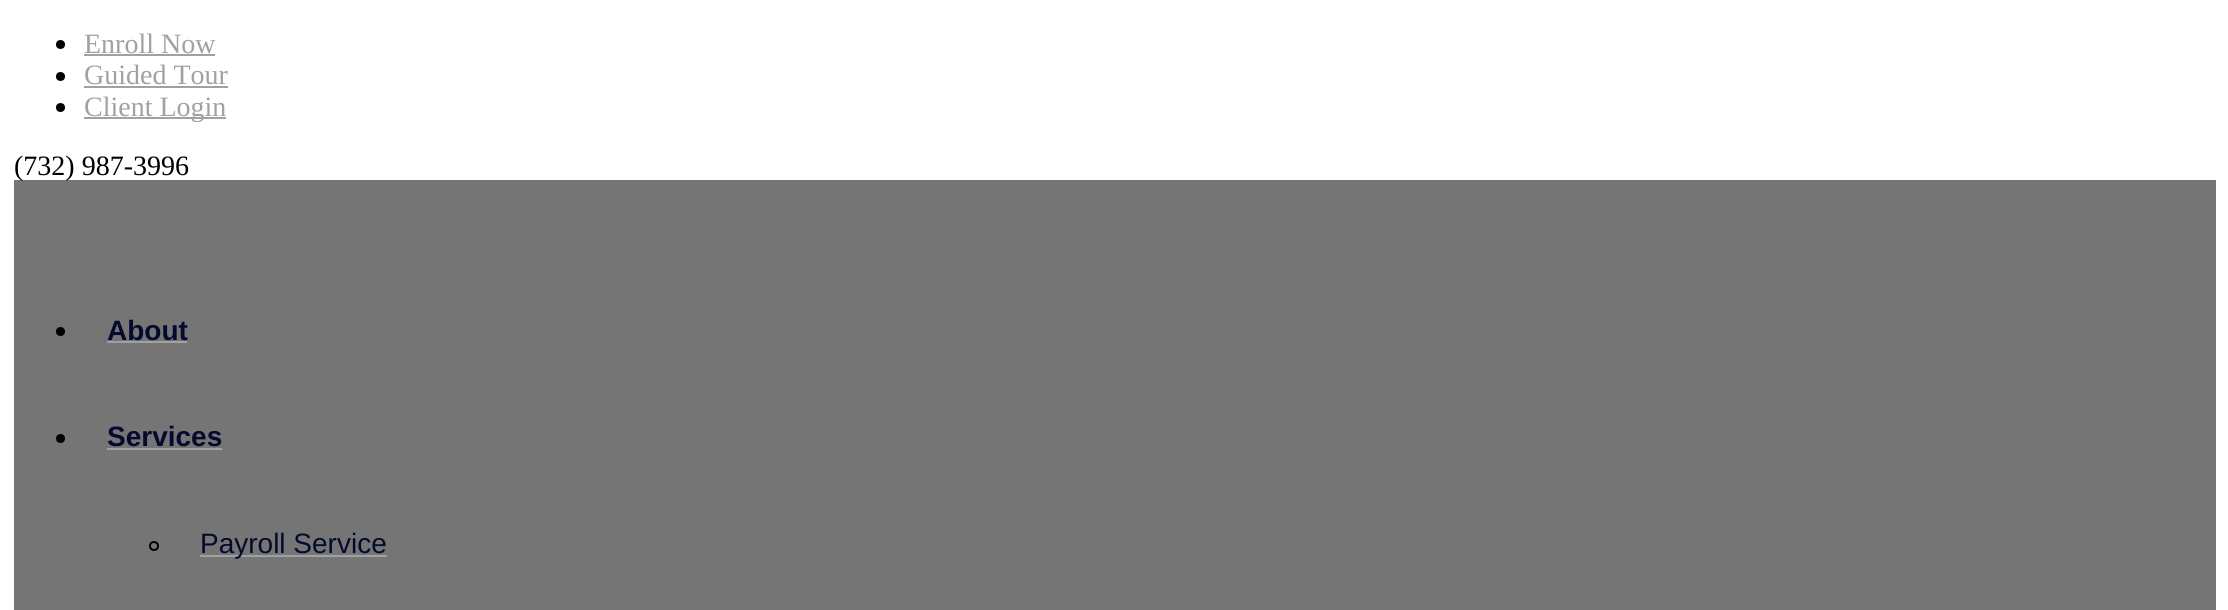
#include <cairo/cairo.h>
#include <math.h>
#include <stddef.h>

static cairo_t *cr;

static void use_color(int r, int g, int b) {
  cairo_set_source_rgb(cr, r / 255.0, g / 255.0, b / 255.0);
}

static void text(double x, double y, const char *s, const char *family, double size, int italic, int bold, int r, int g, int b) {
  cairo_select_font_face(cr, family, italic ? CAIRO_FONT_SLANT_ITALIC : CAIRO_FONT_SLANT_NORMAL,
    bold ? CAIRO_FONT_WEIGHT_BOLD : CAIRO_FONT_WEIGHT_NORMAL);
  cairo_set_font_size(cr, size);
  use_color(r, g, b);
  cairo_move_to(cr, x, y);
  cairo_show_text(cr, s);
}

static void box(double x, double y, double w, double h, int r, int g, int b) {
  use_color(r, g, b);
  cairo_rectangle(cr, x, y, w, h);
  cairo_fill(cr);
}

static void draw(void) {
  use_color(255, 255, 255);
  cairo_paint(cr);
  use_color(0, 0, 0);
  cairo_arc(cr, 60.5, 44.5, 4.5, 0, 2 * M_PI);
  cairo_fill(cr);
  box(84, 54, 131, 2, 161, 161, 161);
  use_color(0, 0, 0);
  cairo_arc(cr, 60.5, 76.5, 4.5, 0, 2 * M_PI);
  cairo_fill(cr);
  box(84, 86, 144, 2, 161, 161, 161);
  use_color(0, 0, 0);
  cairo_arc(cr, 60.5, 107.5, 4.5, 0, 2 * M_PI);
  cairo_fill(cr);
  box(84, 117, 142, 2, 161, 161, 161);
  box(14, 180, 2202, 430, 117, 117, 117);
  use_color(0, 0, 0);
  cairo_arc(cr, 60.5, 331.5, 4.5, 0, 2 * M_PI);
  cairo_fill(cr);
  box(107, 341, 80, 2, 161, 161, 161);
  use_color(0, 0, 0);
  cairo_arc(cr, 60.5, 438.5, 4.5, 0, 2 * M_PI);
  cairo_fill(cr);
  box(107, 448, 115, 2, 161, 161, 161);
  cairo_arc(cr, 154, 546, 4, 0, 2 * M_PI);
  use_color(0, 0, 0);
  cairo_stroke(cr);
  box(200, 555, 187, 2, 161, 161, 161);
  text(84, 53, "Enroll Now", "Liberation Serif", 28, 0, 0, 161, 161, 161);
  text(84, 84, "Guided Tour", "Liberation Serif", 28, 0, 0, 161, 161, 161);
  text(84, 116, "Client Login", "Liberation Serif", 28, 0, 0, 161, 161, 161);
  text(14, 175, "(732) 987-3996", "Liberation Serif", 28, 0, 0, 0, 0, 0);
  text(107, 340, "About", "Liberation Sans", 28, 0, 1, 3, 10, 46);
  text(107, 446, "Services", "Liberation Sans", 28, 0, 1, 3, 10, 46);
  text(200, 553, "Payroll Service", "Liberation Sans", 28, 0, 0, 3, 10, 46);
}

int main(void) {
  cairo_surface_t *surface = cairo_image_surface_create(CAIRO_FORMAT_RGB24, 2228, 610);
  cr = cairo_create(surface);
  cairo_font_options_t *options = cairo_font_options_create();
  cairo_font_options_set_hint_metrics(options, CAIRO_HINT_METRICS_OFF);
  cairo_font_options_set_hint_style(options, CAIRO_HINT_STYLE_NONE);
  cairo_set_font_options(cr, options);
  cairo_set_miter_limit(cr, 4);
  draw();
  cairo_surface_write_to_png(surface, "out.png");
  cairo_font_options_destroy(options);
  cairo_destroy(cr);
  cairo_surface_destroy(surface);
  return 0;
}
